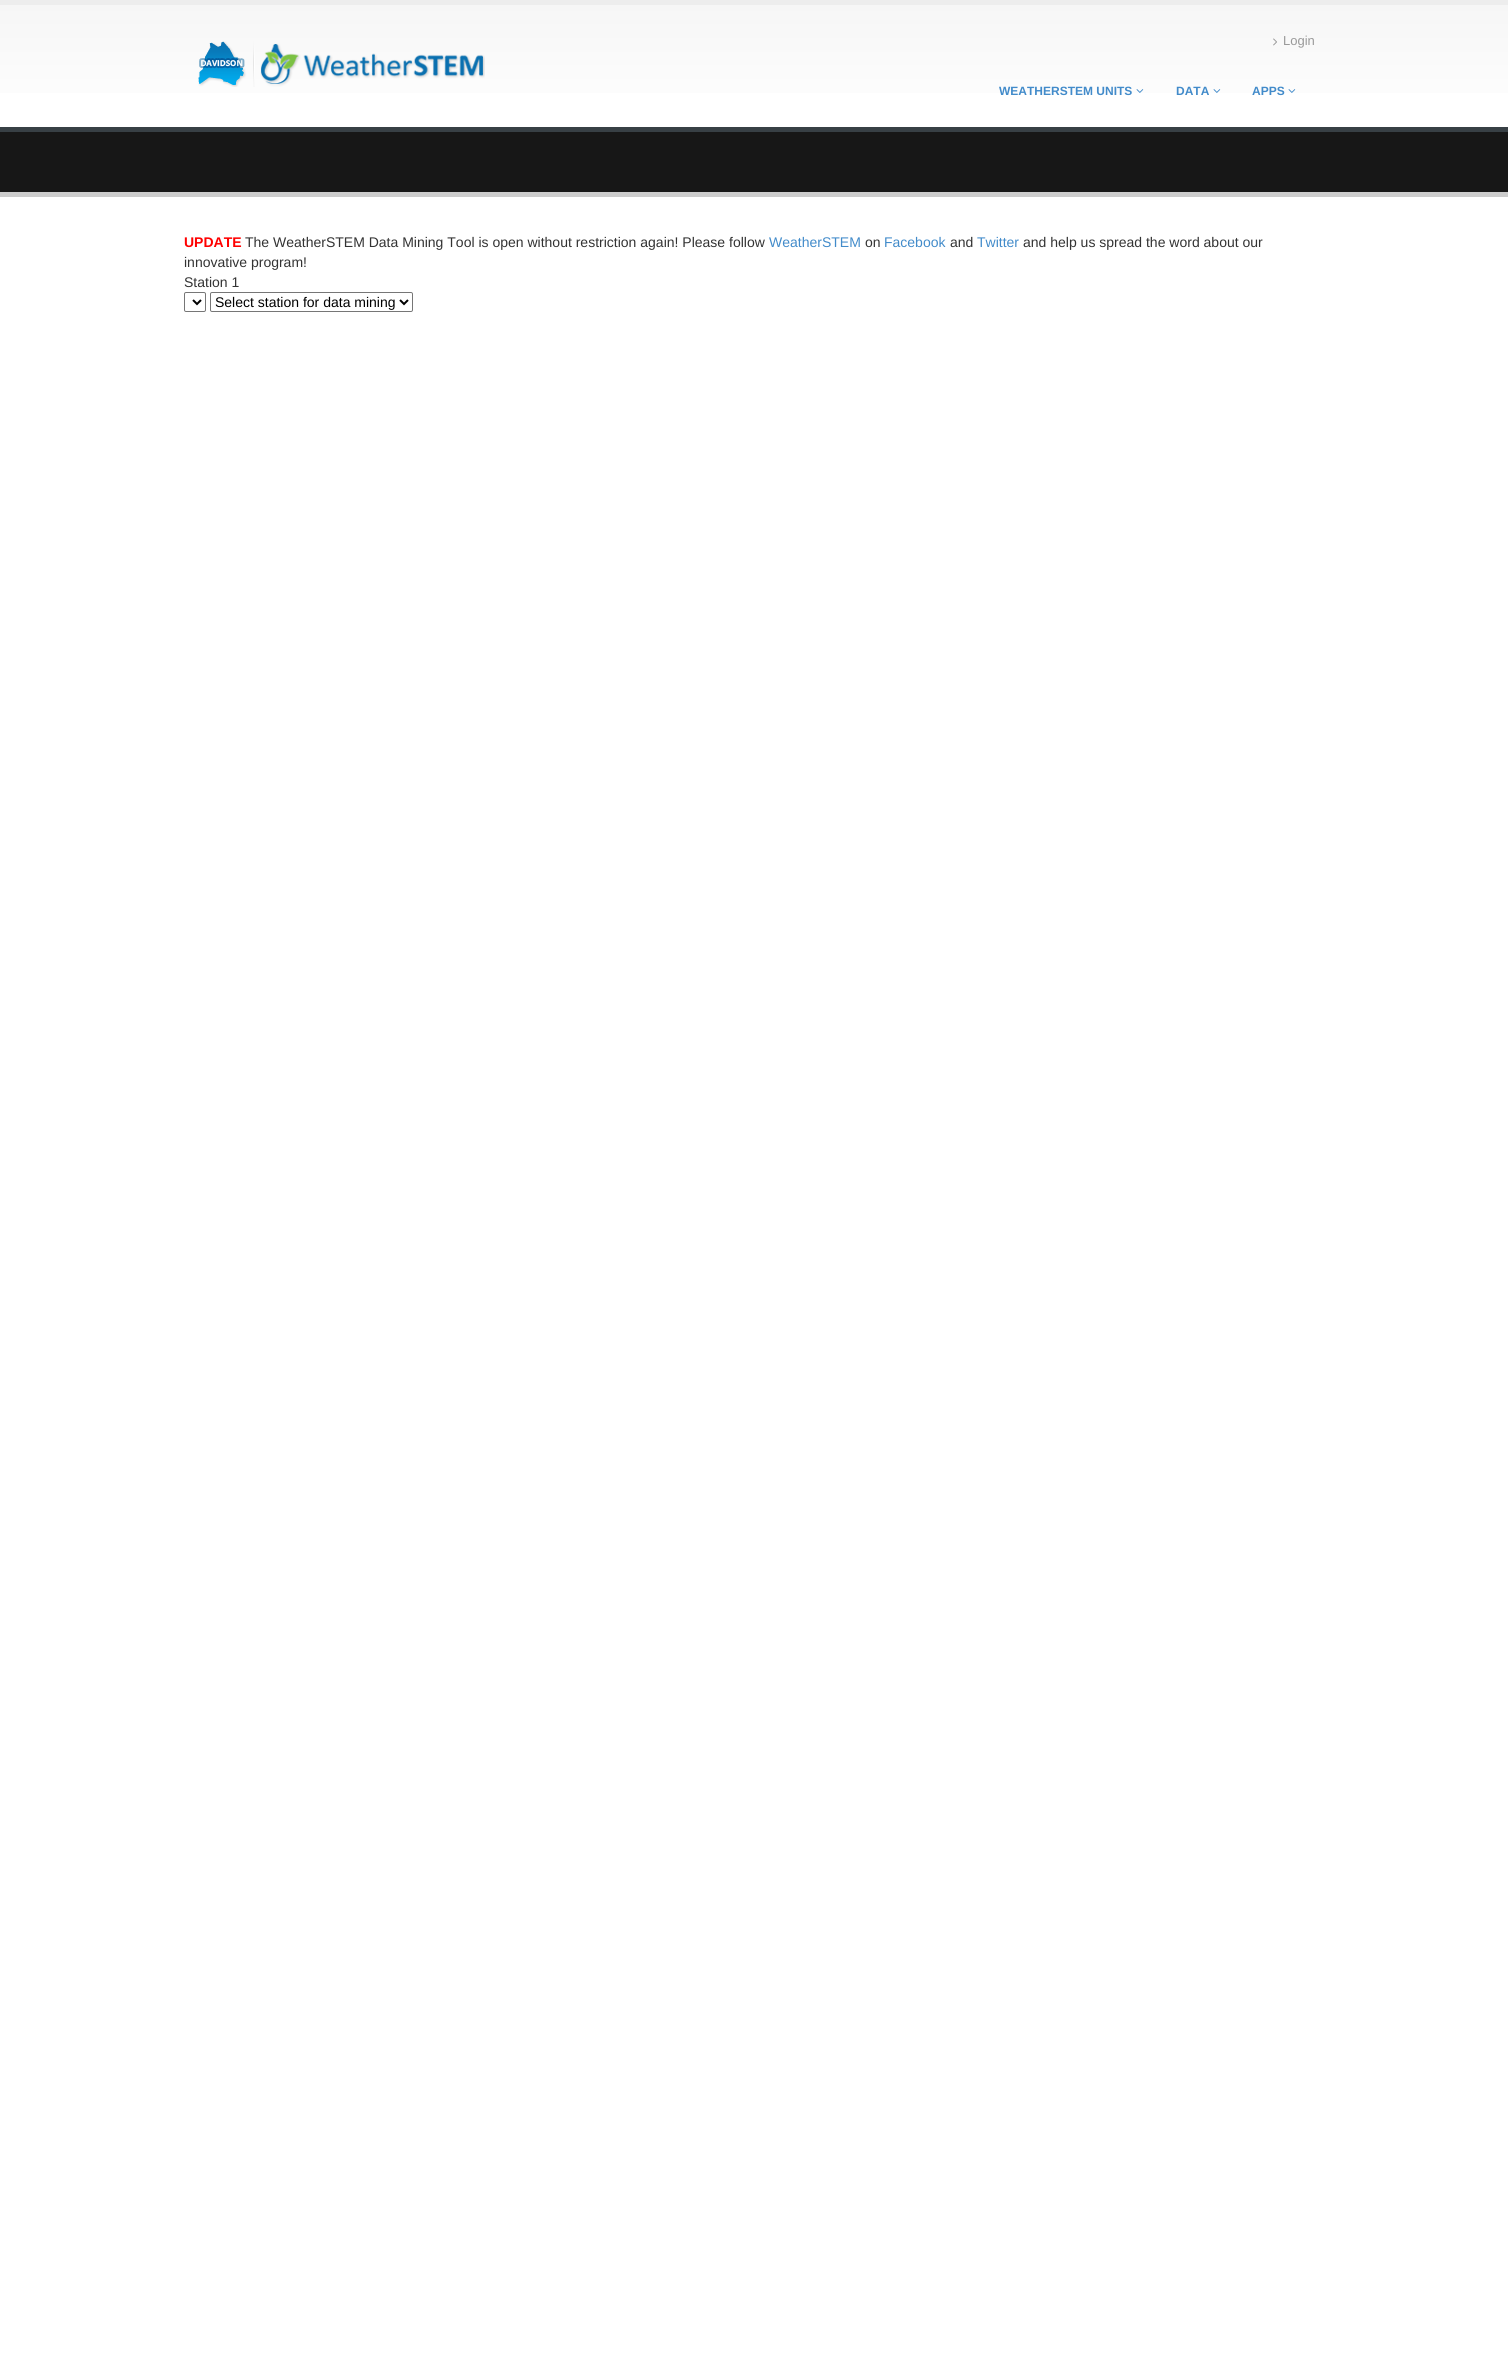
#include <cairo/cairo.h>
#include <math.h>
#include <stddef.h>

static cairo_t *cr;

static void use_color(int r, int g, int b) {
  cairo_set_source_rgb(cr, r / 255.0, g / 255.0, b / 255.0);
}

static void text(double x, double y, const char *s, const char *family, double size, int italic, int bold, int r, int g, int b) {
  cairo_select_font_face(cr, family, italic ? CAIRO_FONT_SLANT_ITALIC : CAIRO_FONT_SLANT_NORMAL,
    bold ? CAIRO_FONT_WEIGHT_BOLD : CAIRO_FONT_WEIGHT_NORMAL);
  cairo_set_font_size(cr, size);
  use_color(r, g, b);
  cairo_move_to(cr, x, y);
  cairo_show_text(cr, s);
}

static void box(double x, double y, double w, double h, int r, int g, int b) {
  use_color(r, g, b);
  cairo_rectangle(cr, x, y, w, h);
  cairo_fill(cr);
}

static void round_rect(double x, double y, double w, double h, double r) {
  cairo_new_sub_path(cr);
  cairo_arc(cr, x + w - r, y + h - r, r, 0, M_PI / 2);
  cairo_arc(cr, x + r, y + h - r, r, M_PI / 2, M_PI);
  cairo_arc(cr, x + r, y + r, r, M_PI, 1.5 * M_PI);
  cairo_arc(cr, x + w - r, y + r, r, 1.5 * M_PI, 2 * M_PI);
  cairo_close_path(cr);
}

static void picture(const char *path, double x, double y, double w, double h) {
  cairo_surface_t *image = cairo_image_surface_create_from_png(path);
  cairo_save(cr);
  cairo_set_source_surface(cr, image, x, y);
  cairo_rectangle(cr, x, y, w, h);
  cairo_fill(cr);
  cairo_restore(cr);
  cairo_surface_destroy(image);
}

static void draw(void) {
  cairo_pattern_t *gradient;
  use_color(255, 255, 255);
  cairo_paint(cr);
  gradient = cairo_pattern_create_linear(754, 5, 754, 127);
  cairo_pattern_add_color_stop_rgba(gradient, 0, 0.965, 0.965, 0.965, 1);
  cairo_pattern_add_color_stop_rgba(gradient, 1, 1, 1, 1, 1);
  cairo_set_source(cr, gradient);
  cairo_pattern_destroy(gradient);
  cairo_rectangle(cr, 0, 5, 1508, 88);
  cairo_fill(cr);
  box(0, 0, 1508, 5, 237, 237, 237);
  picture("img_01.png", 198, 41, 287, 46);
  picture("img_02.png", 1273, 38, 4, 8);
  picture("img_03.png", 1136, 89, 8, 4);
  picture("img_03.png", 1213, 89, 8, 4);
  picture("img_03.png", 1288, 89, 8, 4);
  box(0, 132, 1508, 60, 23, 23, 23);
  box(0, 127, 1508, 5, 56, 64, 69);
  box(0, 192, 1508, 5, 204, 204, 204);
  round_rect(184.5, 292.5, 21, 19, 1.5);
  use_color(118, 118, 118);
  cairo_set_line_width(cr, 1);
  cairo_stroke(cr);
  cairo_new_path(cr);
  cairo_move_to(cr, 193, 300);
  cairo_line_to(cr, 197, 304);
  cairo_line_to(cr, 201, 300);
  use_color(0, 0, 0);
  cairo_set_line_width(cr, 2);
  cairo_stroke(cr);
  round_rect(210.5, 292.5, 202, 19, 1.5);
  use_color(118, 118, 118);
  cairo_set_line_width(cr, 1);
  cairo_stroke(cr);
  cairo_new_path(cr);
  cairo_move_to(cr, 400, 300);
  cairo_line_to(cr, 404, 304);
  cairo_line_to(cr, 408, 300);
  use_color(0, 0, 0);
  cairo_set_line_width(cr, 2);
  cairo_stroke(cr);
  text(1283, 45, "Login", "Liberation Sans", 13, 0, 0, 153, 153, 153);
  text(999, 95, "WEATHERSTEM UNITS", "Liberation Sans", 12, 0, 1, 66, 139, 202);
  text(1176, 95, "DATA", "Liberation Sans", 12, 0, 1, 66, 139, 202);
  text(1252, 95, "APPS", "Liberation Sans", 12, 0, 1, 66, 139, 202);
  text(184, 247, "UPDATE", "Liberation Sans", 14, 0, 1, 255, 0, 0);
  text(245, 247, "The WeatherSTEM Data Mining Tool is open without restriction again! Please follow", "Liberation Sans", 14, 0, 0, 51, 51, 51);
  text(769, 247, "WeatherSTEM", "Liberation Sans", 14, 0, 0, 66, 139, 202);
  text(865, 247, "on", "Liberation Sans", 14, 0, 0, 51, 51, 51);
  text(884, 247, "Facebook", "Liberation Sans", 14, 0, 0, 66, 139, 202);
  text(950, 247, "and", "Liberation Sans", 14, 0, 0, 51, 51, 51);
  text(977, 247, "Twitter", "Liberation Sans", 14, 0, 0, 66, 139, 202);
  text(1023, 247, "and help us spread the word about our", "Liberation Sans", 14, 0, 0, 51, 51, 51);
  text(184, 267, "innovative program!", "Liberation Sans", 14, 0, 0, 51, 51, 51);
  text(184, 287, "Station 1", "Liberation Sans", 14, 0, 0, 51, 51, 51);
  text(215, 307, "Select station for data mining", "Liberation Sans", 14, 0, 0, 0, 0, 0);
}

int main(void) {
  cairo_surface_t *surface = cairo_image_surface_create(CAIRO_FORMAT_RGB24, 1508, 2379);
  cr = cairo_create(surface);
  cairo_font_options_t *options = cairo_font_options_create();
  cairo_font_options_set_hint_metrics(options, CAIRO_HINT_METRICS_OFF);
  cairo_font_options_set_hint_style(options, CAIRO_HINT_STYLE_NONE);
  cairo_set_font_options(cr, options);
  cairo_set_miter_limit(cr, 4);
  draw();
  cairo_surface_write_to_png(surface, "out.png");
  cairo_font_options_destroy(options);
  cairo_destroy(cr);
  cairo_surface_destroy(surface);
  return 0;
}
